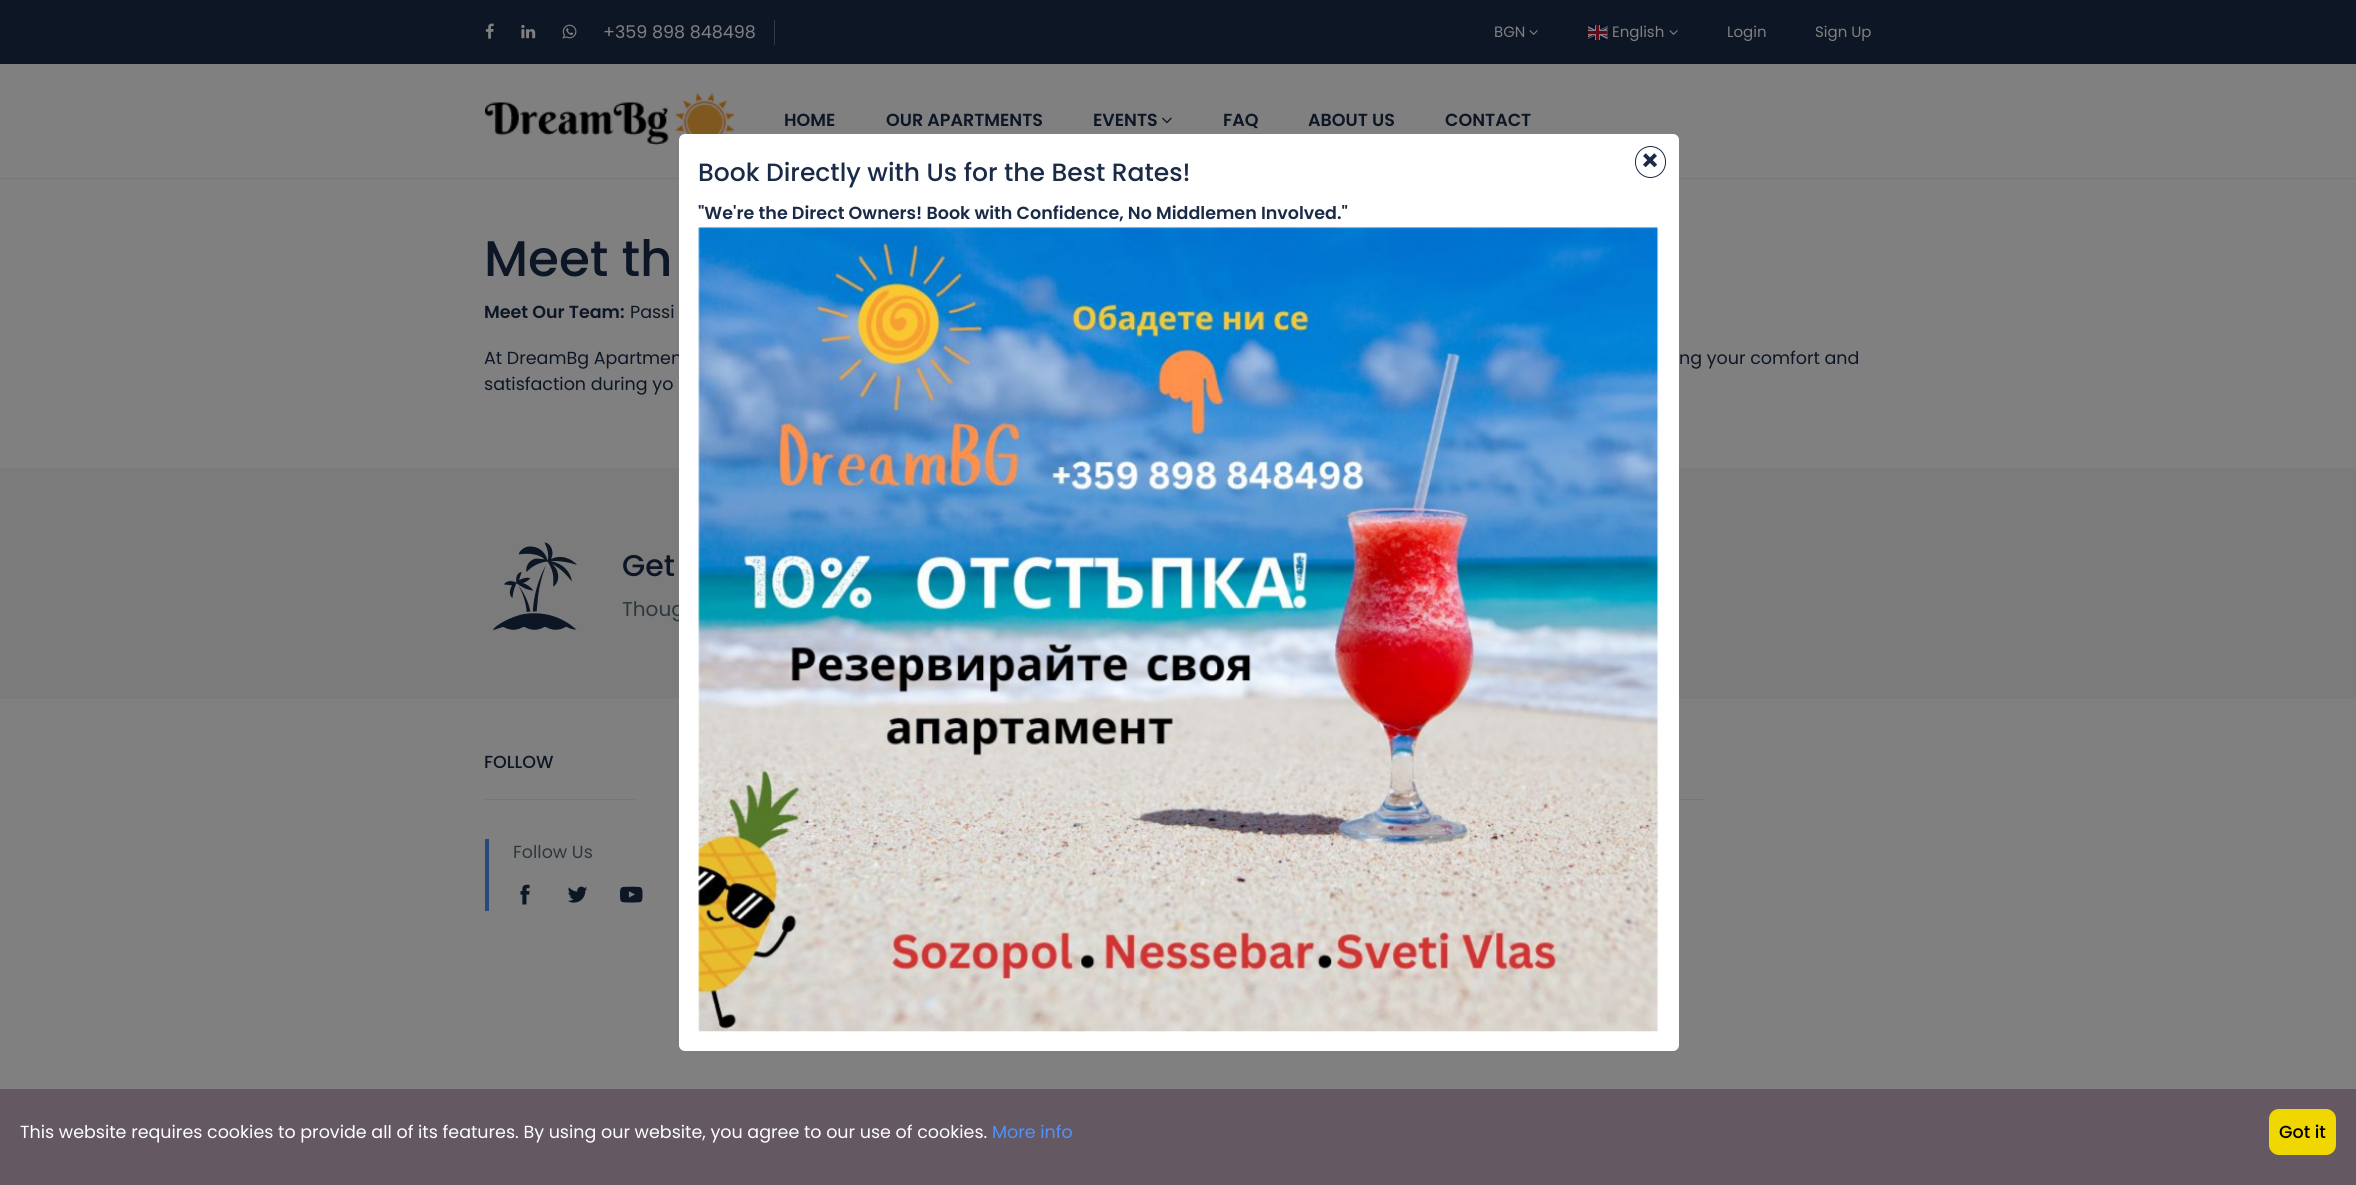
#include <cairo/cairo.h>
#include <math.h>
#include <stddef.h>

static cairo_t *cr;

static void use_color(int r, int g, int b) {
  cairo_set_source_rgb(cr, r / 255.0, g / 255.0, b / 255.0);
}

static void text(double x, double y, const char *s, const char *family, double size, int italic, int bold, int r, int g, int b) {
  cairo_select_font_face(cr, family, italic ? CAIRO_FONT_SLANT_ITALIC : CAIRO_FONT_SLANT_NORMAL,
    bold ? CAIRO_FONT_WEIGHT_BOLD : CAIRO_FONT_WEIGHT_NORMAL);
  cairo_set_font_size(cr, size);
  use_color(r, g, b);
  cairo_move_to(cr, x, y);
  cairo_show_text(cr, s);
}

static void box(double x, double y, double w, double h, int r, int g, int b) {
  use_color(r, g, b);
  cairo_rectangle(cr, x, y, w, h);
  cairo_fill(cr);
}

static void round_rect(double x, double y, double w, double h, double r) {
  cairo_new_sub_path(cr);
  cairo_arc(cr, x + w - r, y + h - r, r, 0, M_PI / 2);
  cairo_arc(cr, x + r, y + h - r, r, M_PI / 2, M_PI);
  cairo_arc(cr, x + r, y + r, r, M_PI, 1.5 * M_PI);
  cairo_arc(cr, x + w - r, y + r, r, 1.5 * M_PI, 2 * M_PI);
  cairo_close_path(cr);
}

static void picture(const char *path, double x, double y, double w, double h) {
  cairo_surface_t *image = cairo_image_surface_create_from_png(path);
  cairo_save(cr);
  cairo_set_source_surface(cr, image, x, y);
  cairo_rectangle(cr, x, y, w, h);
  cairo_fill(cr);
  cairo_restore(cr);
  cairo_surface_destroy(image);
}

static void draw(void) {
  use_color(128, 128, 128);
  cairo_paint(cr);
  box(0, 0, 2356, 64, 13, 22, 36);
  picture("img_01.png", 485, 23, 9, 16);
  picture("img_02.png", 521, 24, 15, 15);
  picture("img_03.png", 562, 24, 15, 15);
  box(774, 20, 1, 25, 48, 57, 72);
  picture("img_04.png", 1529, 30, 9, 5);
  picture("img_05.png", 1588, 25, 20, 15);
  picture("img_04.png", 1669, 30, 9, 5);
  box(0, 178, 2356, 1, 117, 119, 122);
  picture("img_06.png", 485, 92, 249, 54);
  picture("img_07.png", 1162, 117, 10, 7);
  box(0, 468, 2356, 231, 123, 123, 123);
  picture("img_09.png", 493, 542, 84, 88);
  box(485, 799, 150, 1, 118, 118, 118);
  box(485, 839, 4, 72, 41, 73, 125);
  picture("img_10.png", 520, 884, 10, 21);
  picture("img_11.png", 567, 886, 21, 17);
  picture("img_12.png", 620, 886, 23, 17);
  box(1679, 799, 25, 1, 118, 118, 118);
  box(0, 1089, 2356, 96, 100, 88, 98);
  use_color(241, 215, 0);
  round_rect(2269, 1109, 67, 46, 10);
  cairo_fill(cr);
  text(603, 38, "+359 898 848498", "Poppins", 17.5, 0, 0, 128, 128, 128);
  text(1494, 37, "BGN", "Poppins", 15, 0, 0, 128, 128, 128);
  text(1612, 37, "English", "Poppins", 15, 0, 0, 128, 128, 128);
  text(1727, 37, "Login", "Poppins", 15, 0, 0, 128, 128, 128);
  text(1815, 37, "Sign Up", "Poppins", 15, 0, 0, 128, 128, 128);
  text(784, 126, "HOME", "Poppins SemiBold", 17.5, 0, 0, 13, 22, 36);
  text(886, 126, "OUR APARTMENTS", "Poppins SemiBold", 17.5, 0, 0, 13, 22, 36);
  text(1093, 126, "EVENTS", "Poppins SemiBold", 17.5, 0, 0, 13, 22, 36);
  text(1223, 126, "FAQ", "Poppins SemiBold", 17.5, 0, 0, 13, 22, 36);
  text(1308, 126, "ABOUT US", "Poppins SemiBold", 17.5, 0, 0, 13, 22, 36);
  text(1445, 126, "CONTACT", "Poppins SemiBold", 17.5, 0, 0, 13, 22, 36);
  text(484, 276, "Meet th", "Poppins Medium", 50, 0, 0, 13, 22, 36);
  text(484, 318, "Meet Our Team:", "Poppins SemiBold", 17.5, 0, 0, 13, 22, 36);
  text(630, 318, "Passi", "Poppins", 17.5, 0, 0, 13, 22, 36);
  text(484, 364, "At DreamBg Apartmen", "Poppins", 17.5, 0, 0, 13, 22, 36);
  text(1679, 364, "ng your comfort and", "Poppins", 17.5, 0, 0, 13, 22, 36);
  text(484, 390, "satisfaction during yo", "Poppins", 17.5, 0, 0, 13, 22, 36);
  text(622, 576, "Get", "Poppins Medium", 30, 0, 0, 13, 22, 36);
  text(622, 616, "Thoug", "Poppins", 20, 0, 0, 47, 55, 60);
  use_color(255, 255, 255);
  round_rect(679, 134, 1000, 917, 6);
  cairo_fill(cr);
  round_rect(1635.5, 146.5, 30, 31, 15);
  use_color(26, 43, 72);
  cairo_set_line_width(cr, 1);
  cairo_stroke(cr);
  text(1640, 171, "×", "Poppins SemiBold", 30, 0, 0, 26, 43, 72);
  picture("img_08.png", 698, 227, 961, 805);
  text(698, 219, "\"We're the Direct Owners! Book with Confidence, No Middlemen Involved.\"", "Poppins SemiBold", 17.5, 0, 0, 26, 43, 72);
  text(698, 181, "Book Directly with Us for the Best Rates!", "Poppins Medium", 25, 0, 0, 26, 43, 72);
  text(484, 768, "FOLLOW", "Poppins Medium", 17.5, 0, 0, 13, 22, 36);
  text(513, 858, "Follow Us", "Poppins", 17.5, 0, 0, 47, 55, 60);
  text(20, 1138, "This website requires cookies to provide all of its features. By using our website, you agree to our use of cookies.", "Poppins", 17.5, 0, 0, 255, 255, 255);
  text(992, 1138, "More info", "Poppins", 17.5, 0, 0, 81, 145, 250);
  text(2279, 1138, "Got it", "Poppins Medium", 17.5, 0, 0, 0, 0, 0);
}

int main(void) {
  cairo_surface_t *surface = cairo_image_surface_create(CAIRO_FORMAT_RGB24, 2356, 1185);
  cr = cairo_create(surface);
  cairo_font_options_t *options = cairo_font_options_create();
  cairo_font_options_set_hint_metrics(options, CAIRO_HINT_METRICS_OFF);
  cairo_font_options_set_hint_style(options, CAIRO_HINT_STYLE_NONE);
  cairo_set_font_options(cr, options);
  cairo_set_miter_limit(cr, 4);
  draw();
  cairo_surface_write_to_png(surface, "out.png");
  cairo_font_options_destroy(options);
  cairo_destroy(cr);
  cairo_surface_destroy(surface);
  return 0;
}
